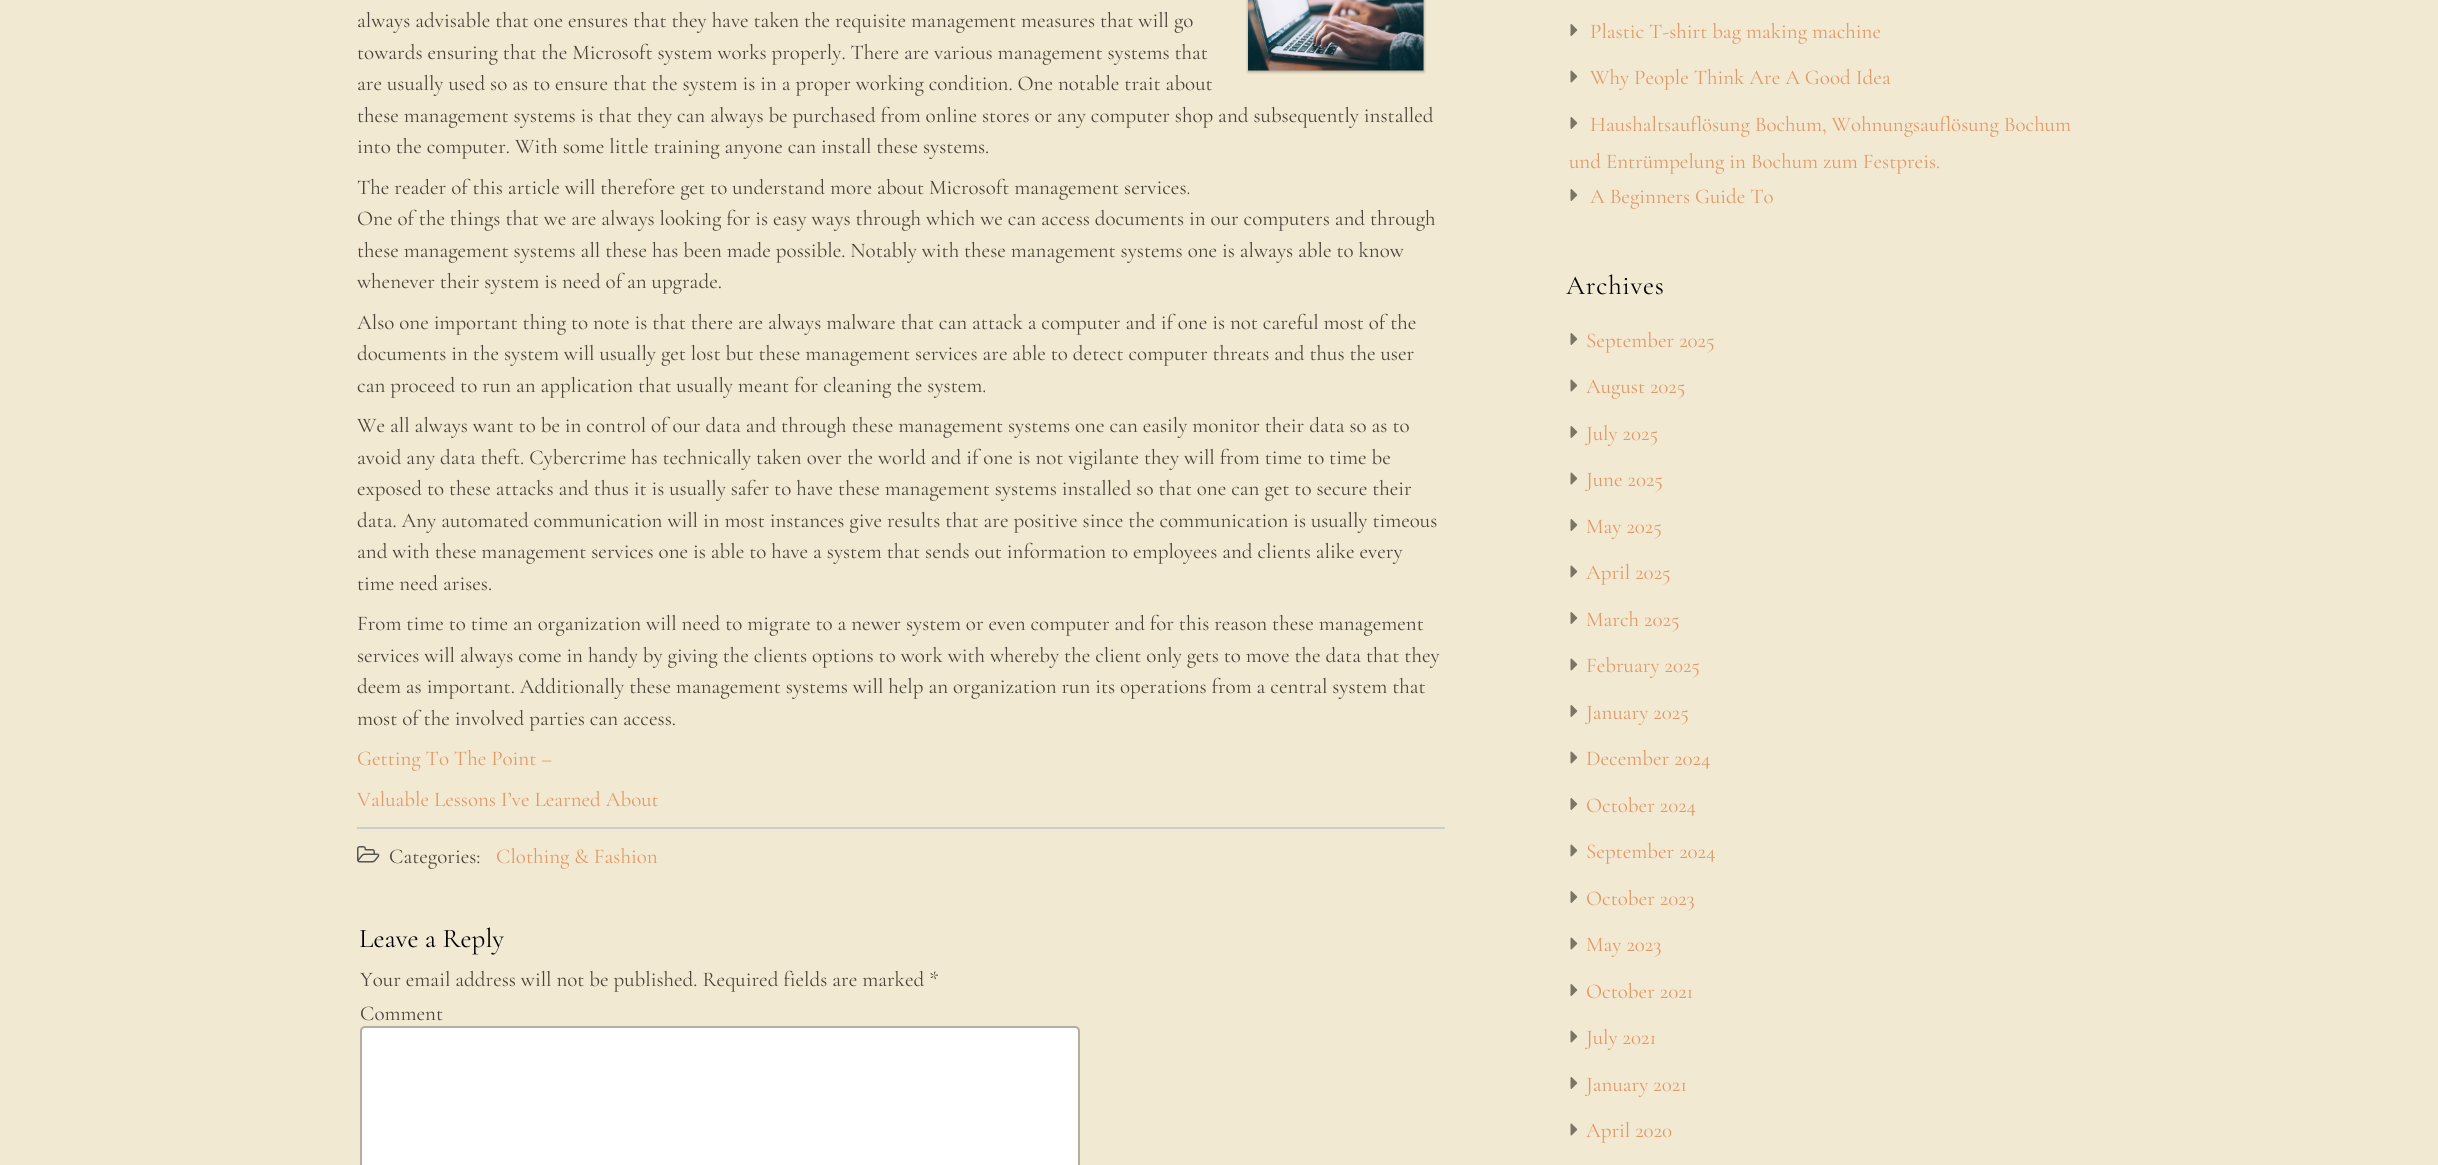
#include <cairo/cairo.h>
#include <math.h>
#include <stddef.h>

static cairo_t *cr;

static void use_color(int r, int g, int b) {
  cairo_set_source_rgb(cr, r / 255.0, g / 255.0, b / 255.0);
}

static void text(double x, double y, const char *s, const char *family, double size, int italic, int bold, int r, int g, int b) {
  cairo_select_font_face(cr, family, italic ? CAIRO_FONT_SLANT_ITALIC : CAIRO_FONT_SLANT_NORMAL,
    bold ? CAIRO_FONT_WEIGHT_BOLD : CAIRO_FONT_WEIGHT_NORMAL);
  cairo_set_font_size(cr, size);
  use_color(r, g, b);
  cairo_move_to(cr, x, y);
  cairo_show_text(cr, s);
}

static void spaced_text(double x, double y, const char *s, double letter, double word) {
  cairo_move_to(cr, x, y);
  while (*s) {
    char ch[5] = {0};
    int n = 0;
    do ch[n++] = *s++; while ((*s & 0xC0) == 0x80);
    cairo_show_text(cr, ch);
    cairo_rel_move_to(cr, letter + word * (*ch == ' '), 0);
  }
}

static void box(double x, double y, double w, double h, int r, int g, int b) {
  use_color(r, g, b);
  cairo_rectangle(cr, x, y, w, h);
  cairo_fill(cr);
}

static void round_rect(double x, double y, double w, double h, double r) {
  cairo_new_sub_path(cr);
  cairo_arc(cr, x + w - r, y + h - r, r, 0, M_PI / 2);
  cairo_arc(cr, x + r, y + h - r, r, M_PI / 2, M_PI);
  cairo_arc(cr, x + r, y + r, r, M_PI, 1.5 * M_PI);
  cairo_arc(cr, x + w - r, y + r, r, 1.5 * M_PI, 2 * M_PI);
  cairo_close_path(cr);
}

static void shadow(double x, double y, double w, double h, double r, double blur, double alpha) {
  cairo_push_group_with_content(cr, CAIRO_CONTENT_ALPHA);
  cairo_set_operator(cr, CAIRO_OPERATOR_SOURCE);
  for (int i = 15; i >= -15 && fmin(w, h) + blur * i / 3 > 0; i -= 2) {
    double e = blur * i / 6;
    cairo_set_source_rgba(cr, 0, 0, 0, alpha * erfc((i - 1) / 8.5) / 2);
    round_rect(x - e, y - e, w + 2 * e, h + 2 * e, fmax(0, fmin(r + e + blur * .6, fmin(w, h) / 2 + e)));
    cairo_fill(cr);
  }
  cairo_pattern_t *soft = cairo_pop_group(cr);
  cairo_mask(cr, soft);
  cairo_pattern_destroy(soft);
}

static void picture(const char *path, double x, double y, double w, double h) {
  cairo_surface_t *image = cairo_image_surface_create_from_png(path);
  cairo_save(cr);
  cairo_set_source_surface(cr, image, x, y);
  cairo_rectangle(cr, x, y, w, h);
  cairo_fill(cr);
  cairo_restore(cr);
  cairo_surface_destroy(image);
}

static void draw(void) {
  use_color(242, 233, 210);
  cairo_paint(cr);
  use_color(0, 0, 0);
  shadow(1248, -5, 176, 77, 0, 1.5, 0.3);
  picture("img_01.png", 1248, 0, 176, 71);
  box(357, 827, 1088, 2, 204, 204, 204);
  picture("img_02.png", 357, 846, 23, 17);
  use_color(255, 255, 255);
  round_rect(361, 1027, 718, 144, 4);
  cairo_fill_preserve(cr);
  use_color(178, 174, 163);
  cairo_stroke(cr);
  picture("img_03.png", 1570, 24, 8, 12);
  picture("img_04.png", 1570, 70, 8, 13);
  picture("img_03.png", 1570, 117, 8, 12);
  picture("img_03.png", 1570, 189, 8, 12);
  picture("img_03.png", 1570, 333, 8, 12);
  picture("img_04.png", 1570, 379, 8, 13);
  picture("img_03.png", 1570, 426, 8, 12);
  picture("img_04.png", 1570, 472, 8, 13);
  picture("img_03.png", 1570, 519, 8, 12);
  picture("img_04.png", 1570, 565, 8, 13);
  picture("img_03.png", 1570, 612, 8, 12);
  picture("img_04.png", 1570, 658, 8, 13);
  picture("img_03.png", 1570, 705, 8, 12);
  picture("img_04.png", 1570, 751, 8, 13);
  picture("img_03.png", 1570, 798, 8, 12);
  picture("img_04.png", 1570, 844, 8, 13);
  picture("img_03.png", 1570, 891, 8, 12);
  picture("img_04.png", 1570, 937, 8, 13);
  picture("img_03.png", 1570, 984, 8, 12);
  picture("img_04.png", 1570, 1030, 8, 13);
  picture("img_03.png", 1570, 1077, 8, 12);
  picture("img_04.png", 1570, 1123, 8, 13);
  text(357, 27, "always advisable that one ensures that they have taken the requisite management measures that will go", "Cormorant Garamond Light", 21, 0, 0, 72, 67, 56);
  text(357, 59, "towards ensuring that the Microsoft system works properly. There are various management systems that", "Cormorant Garamond Light", 21, 0, 0, 72, 67, 56);
  text(357, 90, "are usually used so as to ensure that the system is in a proper working condition. One notable trait about", "Cormorant Garamond Light", 21, 0, 0, 72, 67, 56);
  text(357, 122, "these management systems is that they can always be purchased from online stores or any computer shop and subsequently installed", "Cormorant Garamond Light", 21, 0, 0, 72, 67, 56);
  text(357, 153, "into the computer. With some little training anyone can install these systems.", "Cormorant Garamond Light", 21, 0, 0, 72, 67, 56);
  text(357, 194, "The reader of this article will therefore get to understand more about Microsoft management services.", "Cormorant Garamond Light", 21, 0, 0, 72, 67, 56);
  text(357, 225, "One of the things that we are always looking for is easy ways through which we can access documents in our computers and through", "Cormorant Garamond Light", 21, 0, 0, 72, 67, 56);
  text(357, 257, "these management systems all these has been made possible. Notably with these management systems one is always able to know", "Cormorant Garamond Light", 21, 0, 0, 72, 67, 56);
  text(357, 288, "whenever their system is need of an upgrade.", "Cormorant Garamond Light", 21, 0, 0, 72, 67, 56);
  text(357, 329, "Also one important thing to note is that there are always malware that can attack a computer and if one is not careful most of the", "Cormorant Garamond Light", 21, 0, 0, 72, 67, 56);
  text(357, 360, "documents in the system will usually get lost but these management services are able to detect computer threats and thus the user", "Cormorant Garamond Light", 21, 0, 0, 72, 67, 56);
  text(357, 392, "can proceed to run an application that usually meant for cleaning the system.", "Cormorant Garamond Light", 21, 0, 0, 72, 67, 56);
  text(357, 432, "We all always want to be in control of our data and through these management systems one can easily monitor their data so as to", "Cormorant Garamond Light", 21, 0, 0, 72, 67, 56);
  text(357, 464, "avoid any data theft. Cybercrime has technically taken over the world and if one is not vigilante they will from time to time be", "Cormorant Garamond Light", 21, 0, 0, 72, 67, 56);
  text(357, 495, "exposed to these attacks and thus it is usually safer to have these management systems installed so that one can get to secure their", "Cormorant Garamond Light", 21, 0, 0, 72, 67, 56);
  text(357, 527, "data. Any automated communication will in most instances give results that are positive since the communication is usually timeous", "Cormorant Garamond Light", 21, 0, 0, 72, 67, 56);
  text(357, 558, "and with these management services one is able to have a system that sends out information to employees and clients alike every", "Cormorant Garamond Light", 21, 0, 0, 72, 67, 56);
  text(357, 590, "time need arises.", "Cormorant Garamond Light", 21, 0, 0, 72, 67, 56);
  text(357, 630, "From time to time an organization will need to migrate to a newer system or even computer and for this reason these management", "Cormorant Garamond Light", 21, 0, 0, 72, 67, 56);
  text(357, 662, "services will always come in handy by giving the clients options to work with whereby the client only gets to move the data that they", "Cormorant Garamond Light", 21, 0, 0, 72, 67, 56);
  text(357, 693, "deem as important. Additionally these management systems will help an organization run its operations from a central system that", "Cormorant Garamond Light", 21, 0, 0, 72, 67, 56);
  text(357, 725, "most of the involved parties can access.", "Cormorant Garamond Light", 21, 0, 0, 72, 67, 56);
  text(357, 765, "Getting To The Point –", "Cormorant Garamond Light", 21, 0, 0, 224, 152, 102);
  text(357, 806, "Valuable Lessons I’ve Learned About", "Cormorant Garamond Light", 21, 0, 0, 224, 152, 102);
  text(389, 863, "Categories:", "Cormorant Garamond Light", 21, 0, 0, 72, 67, 56);
  text(496, 863, "Clothing & Fashion", "Cormorant Garamond Light", 21, 0, 0, 224, 152, 102);
  text(359, 947, "Leave a Reply", "Cormorant Garamond Light", 27, 0, 0, 0, 0, 0);
  text(360, 986, "Your email address will not be published. Required fields are marked *", "Cormorant Garamond Light", 21, 0, 0, 72, 67, 56);
  text(360, 1020, "Comment", "Cormorant Garamond Light", 21, 0, 0, 72, 67, 56);
  text(1590, 38, "Plastic T-shirt bag making machine", "Cormorant Garamond Light", 21, 0, 0, 224, 152, 102);
  text(1590, 84, "Why People Think Are A Good Idea", "Cormorant Garamond Light", 21, 0, 0, 224, 152, 102);
  text(1590, 131, "Haushaltsauflösung Bochum, Wohnungsauflösung Bochum", "Cormorant Garamond Light", 21, 0, 0, 224, 152, 102);
  text(1569, 168, "und Entrümpelung in Bochum zum Festpreis.", "Cormorant Garamond Light", 21, 0, 0, 224, 152, 102);
  text(1590, 203, "A Beginners Guide To", "Cormorant Garamond Light", 21, 0, 0, 224, 152, 102);
  cairo_set_font_size(cr, 27);
  use_color(0, 0, 0);
  spaced_text(1566, 294, "Archives", 0.75, 0);
  text(1586, 347, "September 2025", "Cormorant Garamond Light", 21, 0, 0, 224, 152, 102);
  text(1586, 393, "August 2025", "Cormorant Garamond Light", 21, 0, 0, 224, 152, 102);
  text(1586, 440, "July 2025", "Cormorant Garamond Light", 21, 0, 0, 224, 152, 102);
  text(1586, 486, "June 2025", "Cormorant Garamond Light", 21, 0, 0, 224, 152, 102);
  text(1586, 533, "May 2025", "Cormorant Garamond Light", 21, 0, 0, 224, 152, 102);
  text(1586, 579, "April 2025", "Cormorant Garamond Light", 21, 0, 0, 224, 152, 102);
  text(1586, 626, "March 2025", "Cormorant Garamond Light", 21, 0, 0, 224, 152, 102);
  text(1586, 672, "February 2025", "Cormorant Garamond Light", 21, 0, 0, 224, 152, 102);
  text(1586, 719, "January 2025", "Cormorant Garamond Light", 21, 0, 0, 224, 152, 102);
  text(1586, 765, "December 2024", "Cormorant Garamond Light", 21, 0, 0, 224, 152, 102);
  text(1586, 812, "October 2024", "Cormorant Garamond Light", 21, 0, 0, 224, 152, 102);
  text(1586, 858, "September 2024", "Cormorant Garamond Light", 21, 0, 0, 224, 152, 102);
  text(1586, 905, "October 2023", "Cormorant Garamond Light", 21, 0, 0, 224, 152, 102);
  text(1586, 951, "May 2023", "Cormorant Garamond Light", 21, 0, 0, 224, 152, 102);
  text(1586, 998, "October 2021", "Cormorant Garamond Light", 21, 0, 0, 224, 152, 102);
  text(1586, 1044, "July 2021", "Cormorant Garamond Light", 21, 0, 0, 224, 152, 102);
  text(1586, 1091, "January 2021", "Cormorant Garamond Light", 21, 0, 0, 224, 152, 102);
  text(1586, 1137, "April 2020", "Cormorant Garamond Light", 21, 0, 0, 224, 152, 102);
}

int main(void) {
  cairo_surface_t *surface = cairo_image_surface_create(CAIRO_FORMAT_RGB24, 2438, 1165);
  cr = cairo_create(surface);
  cairo_font_options_t *options = cairo_font_options_create();
  cairo_font_options_set_hint_metrics(options, CAIRO_HINT_METRICS_OFF);
  cairo_font_options_set_hint_style(options, CAIRO_HINT_STYLE_NONE);
  cairo_set_font_options(cr, options);
  cairo_set_miter_limit(cr, 4);
  draw();
  cairo_surface_write_to_png(surface, "out.png");
  cairo_font_options_destroy(options);
  cairo_destroy(cr);
  cairo_surface_destroy(surface);
  return 0;
}
